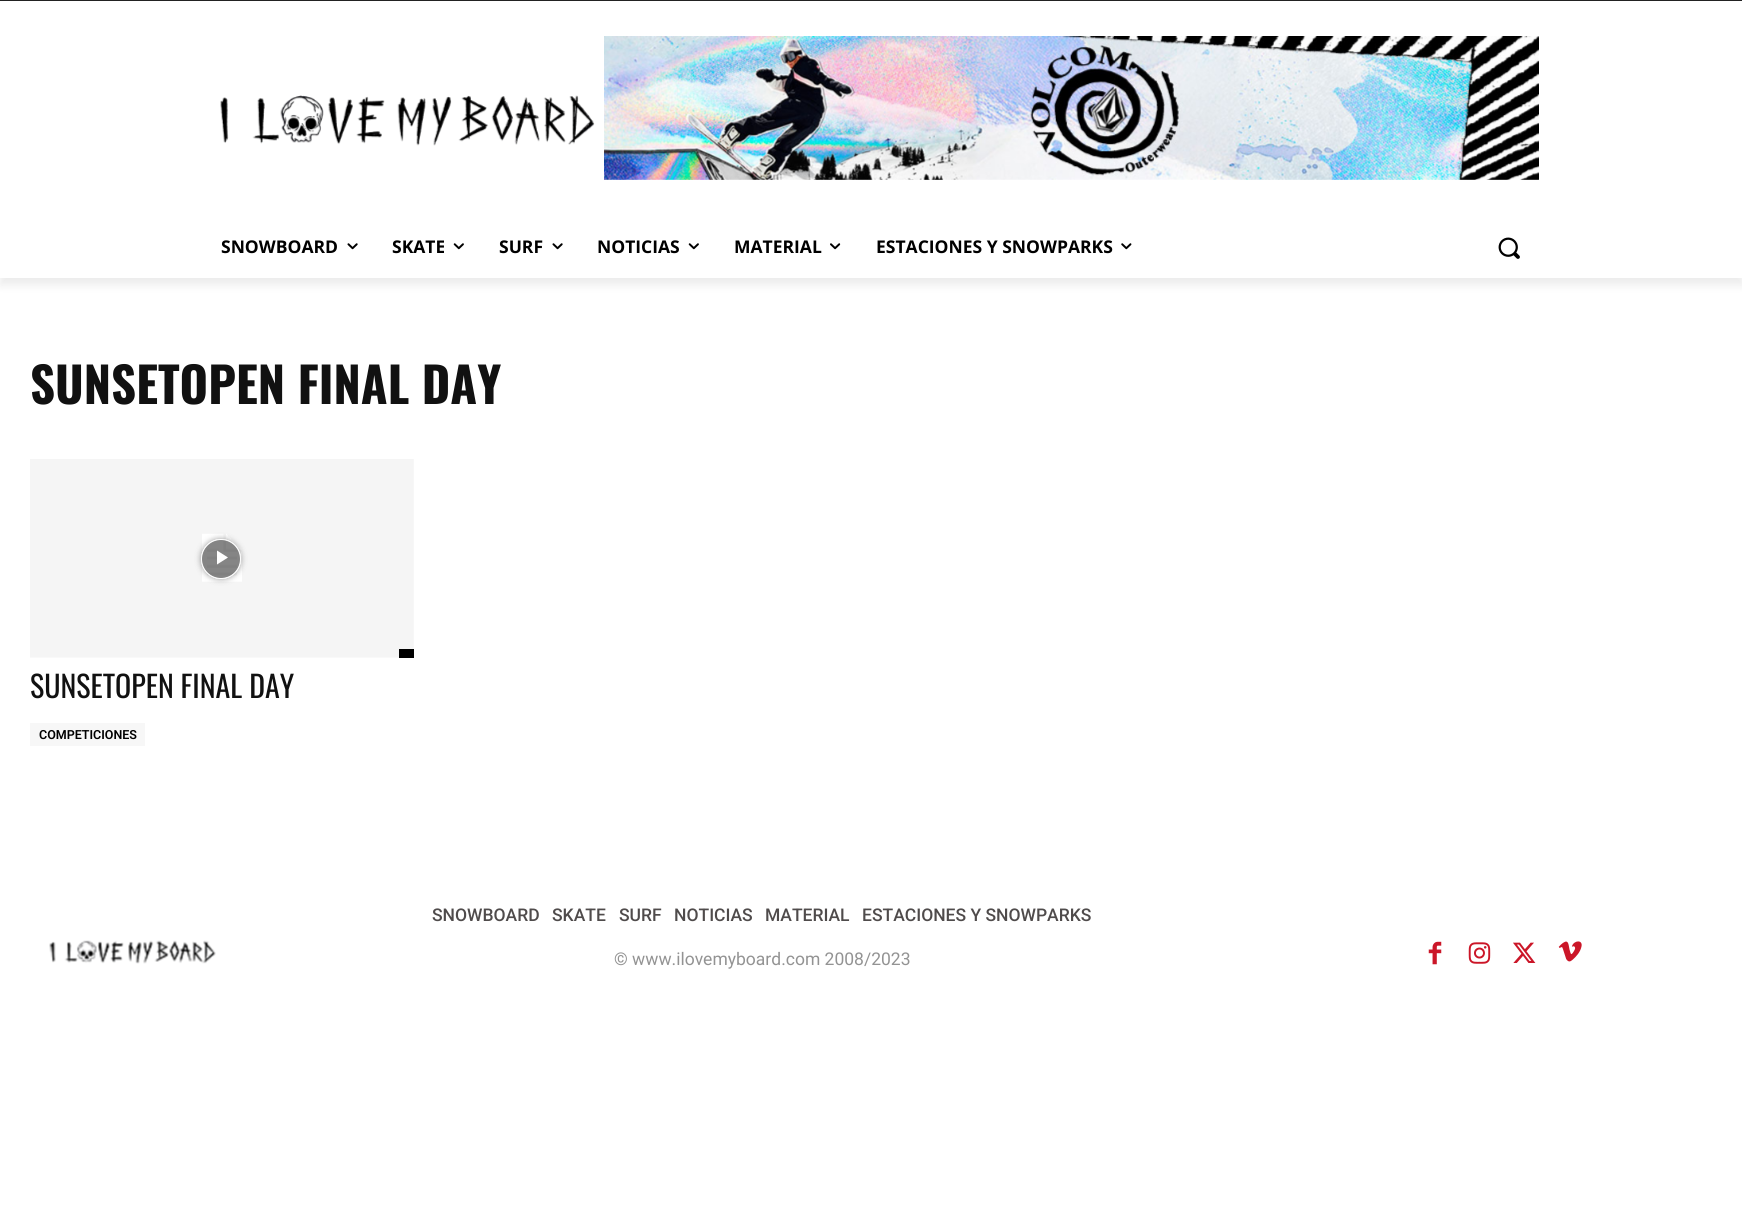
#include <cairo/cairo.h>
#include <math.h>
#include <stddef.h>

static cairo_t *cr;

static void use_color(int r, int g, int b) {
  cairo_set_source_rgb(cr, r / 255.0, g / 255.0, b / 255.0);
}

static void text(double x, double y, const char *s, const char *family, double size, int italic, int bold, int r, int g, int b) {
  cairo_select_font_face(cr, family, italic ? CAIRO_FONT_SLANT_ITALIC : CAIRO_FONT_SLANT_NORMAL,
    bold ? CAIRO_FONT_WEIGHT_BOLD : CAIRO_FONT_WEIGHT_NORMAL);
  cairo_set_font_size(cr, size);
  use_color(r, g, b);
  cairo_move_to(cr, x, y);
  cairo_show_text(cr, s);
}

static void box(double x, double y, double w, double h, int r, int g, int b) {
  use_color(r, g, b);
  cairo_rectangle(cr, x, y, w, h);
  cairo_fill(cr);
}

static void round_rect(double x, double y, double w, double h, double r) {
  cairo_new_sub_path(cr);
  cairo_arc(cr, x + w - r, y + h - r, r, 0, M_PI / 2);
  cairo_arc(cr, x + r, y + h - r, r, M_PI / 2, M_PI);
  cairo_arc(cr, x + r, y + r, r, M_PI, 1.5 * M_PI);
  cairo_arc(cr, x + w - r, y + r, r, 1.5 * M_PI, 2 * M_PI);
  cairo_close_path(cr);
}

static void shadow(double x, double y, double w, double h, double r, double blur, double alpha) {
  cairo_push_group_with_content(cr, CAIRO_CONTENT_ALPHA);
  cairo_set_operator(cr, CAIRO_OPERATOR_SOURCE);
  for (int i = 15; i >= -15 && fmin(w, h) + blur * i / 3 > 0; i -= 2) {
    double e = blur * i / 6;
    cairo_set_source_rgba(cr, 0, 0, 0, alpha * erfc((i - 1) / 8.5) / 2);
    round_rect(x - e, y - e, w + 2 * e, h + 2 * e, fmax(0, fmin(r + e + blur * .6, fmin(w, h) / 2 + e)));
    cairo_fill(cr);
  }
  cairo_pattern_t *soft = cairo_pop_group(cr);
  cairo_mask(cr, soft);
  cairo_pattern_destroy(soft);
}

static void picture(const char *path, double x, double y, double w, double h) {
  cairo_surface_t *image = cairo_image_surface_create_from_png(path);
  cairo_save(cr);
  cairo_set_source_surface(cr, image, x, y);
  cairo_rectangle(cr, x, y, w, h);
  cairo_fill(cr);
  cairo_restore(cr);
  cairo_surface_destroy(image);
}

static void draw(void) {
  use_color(255, 255, 255);
  cairo_paint(cr);
  box(0, 0, 1742, 1, 34, 34, 34);
  picture("img_01.png", 220, 95, 375, 51);
  picture("img_02.png", 604, 36, 935, 144);
  cairo_save(cr);
  cairo_set_fill_rule(cr, CAIRO_FILL_RULE_EVEN_ODD);
  cairo_new_path(cr);
  cairo_move_to(cr, 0, 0);
  cairo_line_to(cr, 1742, 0);
  cairo_line_to(cr, 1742, 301);
  cairo_line_to(cr, 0, 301);
  cairo_close_path(cr);
  cairo_move_to(cr, 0, 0);
  cairo_line_to(cr, 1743, 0);
  cairo_line_to(cr, 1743, 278);
  cairo_line_to(cr, 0, 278);
  cairo_close_path(cr);
  cairo_clip(cr);
  use_color(0, 0, 0);
  shadow(0, 8, 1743, 277, 0, 5, 0.08);
  cairo_restore(cr);
  picture("img_03.png", 347, 243, 11, 7);
  picture("img_04.png", 453, 243, 11, 7);
  picture("img_03.png", 552, 243, 11, 7);
  picture("img_04.png", 688, 243, 11, 7);
  picture("img_05.png", 830, 243, 11, 7);
  picture("img_06.png", 1121, 243, 11, 7);
  picture("img_07.png", 1498, 237, 22, 22);
  picture("img_08.png", 30, 459, 384, 199);
  cairo_save(cr);
  cairo_set_fill_rule(cr, CAIRO_FILL_RULE_EVEN_ODD);
  cairo_new_path(cr);
  cairo_move_to(cr, 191, 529);
  cairo_line_to(cr, 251, 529);
  cairo_line_to(cr, 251, 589);
  cairo_line_to(cr, 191, 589);
  cairo_close_path(cr);
  cairo_move_to(cr, 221, 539);
  cairo_curve_to(cr, 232, 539, 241, 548, 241, 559);
  cairo_curve_to(cr, 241, 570, 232, 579, 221, 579);
  cairo_curve_to(cr, 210, 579, 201, 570, 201, 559);
  cairo_curve_to(cr, 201, 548, 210, 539, 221, 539);
  cairo_close_path(cr);
  cairo_clip(cr);
  use_color(0, 0, 0);
  shadow(201, 539, 40, 40, 20, 3, 0.4);
  cairo_restore(cr);
  cairo_set_source_rgba(cr, 0, 0, 0, 0.48);
  cairo_arc(cr, 221, 559, 19.5, 0, 2 * M_PI);
  cairo_fill_preserve(cr);
  use_color(255, 255, 255);
  cairo_set_line_width(cr, 1);
  cairo_stroke(cr);
  cairo_new_path(cr);
  cairo_move_to(cr, 217, 550.5);
  cairo_line_to(cr, 217, 564.5);
  cairo_line_to(cr, 228, 557.5);
  cairo_close_path(cr);
  cairo_fill(cr);
  box(399, 649, 15, 9, 0, 0, 0);
  box(30, 723, 115, 23, 247, 247, 247);
  picture("img_09.png", 49, 940, 167, 24);
  picture("img_10.png", 1428, 941, 14, 24);
  picture("img_11.png", 1468, 942, 23, 22);
  picture("img_12.png", 1513, 942, 23, 21);
  picture("img_13.png", 1558, 941, 24, 21);
  text(221, 253, "SNOWBOARD", "Open Sans", 17.5, 0, 1, 0, 0, 0);
  text(392, 253, "SKATE", "Open Sans", 17.5, 0, 1, 0, 0, 0);
  text(499, 253, "SURF", "Open Sans", 17.5, 0, 1, 0, 0, 0);
  text(597, 253, "NOTICIAS", "Open Sans", 17.5, 0, 1, 0, 0, 0);
  text(734, 253, "MATERIAL", "Open Sans", 17.5, 0, 1, 0, 0, 0);
  text(876, 253, "ESTACIONES Y SNOWPARKS", "Open Sans", 17.5, 0, 1, 0, 0, 0);
  text(30, 404, "SUNSETOPEN FINAL DAY", "Oswald", 48.75, 0, 1, 17, 17, 17);
  text(30, 698, "SUNSETOPEN FINAL DAY", "Oswald", 30, 0, 0, 17, 17, 17);
  text(39, 739, "COMPETICIONES", "Roboto SemiBold", 12.5, 0, 0, 0, 0, 0);
  text(432, 921, "SNOWBOARD", "Roboto Medium", 17.5, 0, 0, 79, 75, 75);
  text(552, 921, "SKATE", "Roboto Medium", 17.5, 0, 0, 79, 75, 75);
  text(619, 921, "SURF", "Roboto Medium", 17.5, 0, 0, 79, 75, 75);
  text(674, 921, "NOTICIAS", "Roboto Medium", 17.5, 0, 0, 79, 75, 75);
  text(765, 921, "MATERIAL", "Roboto Medium", 17.5, 0, 0, 79, 75, 75);
  text(862, 921, "ESTACIONES Y SNOWPARKS", "Roboto Medium", 17.5, 0, 0, 79, 75, 75);
  text(614, 965, "© www.ilovemyboard.com 2008/2023", "Roboto", 17.5, 0, 0, 147, 147, 147);
}

int main(void) {
  cairo_surface_t *surface = cairo_image_surface_create(CAIRO_FORMAT_RGB24, 1742, 1207);
  cr = cairo_create(surface);
  cairo_font_options_t *options = cairo_font_options_create();
  cairo_font_options_set_hint_metrics(options, CAIRO_HINT_METRICS_OFF);
  cairo_font_options_set_hint_style(options, CAIRO_HINT_STYLE_NONE);
  cairo_set_font_options(cr, options);
  cairo_set_miter_limit(cr, 4);
  draw();
  cairo_surface_write_to_png(surface, "out.png");
  cairo_font_options_destroy(options);
  cairo_destroy(cr);
  cairo_surface_destroy(surface);
  return 0;
}
